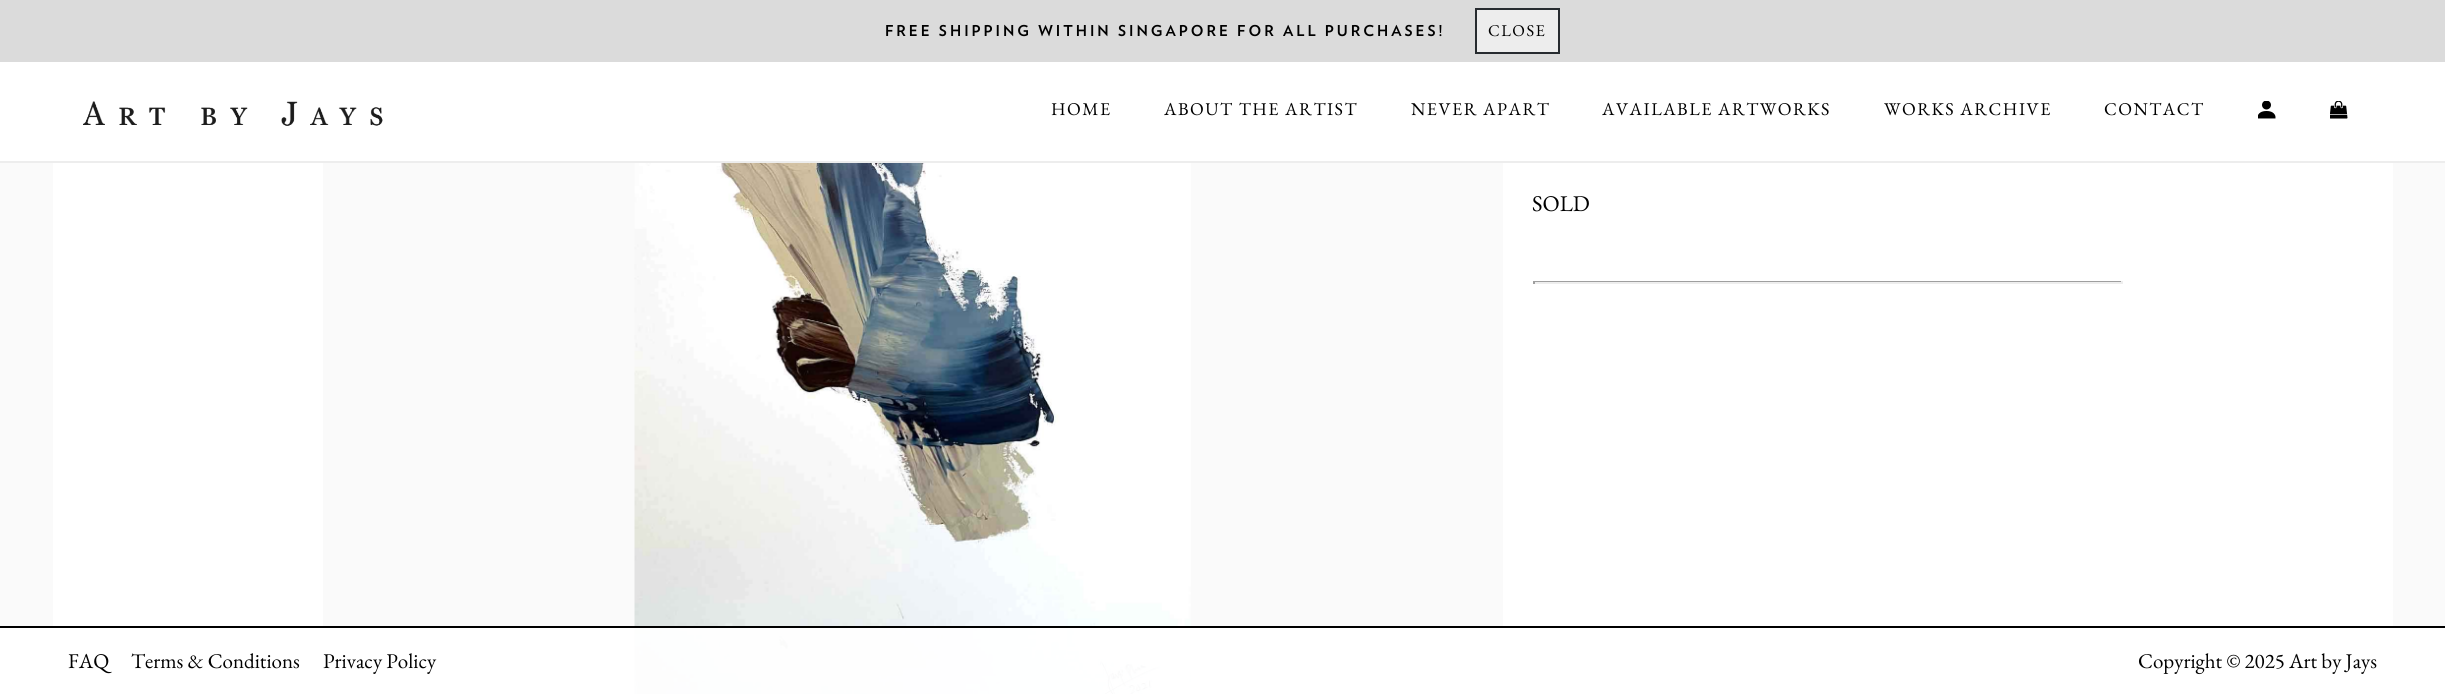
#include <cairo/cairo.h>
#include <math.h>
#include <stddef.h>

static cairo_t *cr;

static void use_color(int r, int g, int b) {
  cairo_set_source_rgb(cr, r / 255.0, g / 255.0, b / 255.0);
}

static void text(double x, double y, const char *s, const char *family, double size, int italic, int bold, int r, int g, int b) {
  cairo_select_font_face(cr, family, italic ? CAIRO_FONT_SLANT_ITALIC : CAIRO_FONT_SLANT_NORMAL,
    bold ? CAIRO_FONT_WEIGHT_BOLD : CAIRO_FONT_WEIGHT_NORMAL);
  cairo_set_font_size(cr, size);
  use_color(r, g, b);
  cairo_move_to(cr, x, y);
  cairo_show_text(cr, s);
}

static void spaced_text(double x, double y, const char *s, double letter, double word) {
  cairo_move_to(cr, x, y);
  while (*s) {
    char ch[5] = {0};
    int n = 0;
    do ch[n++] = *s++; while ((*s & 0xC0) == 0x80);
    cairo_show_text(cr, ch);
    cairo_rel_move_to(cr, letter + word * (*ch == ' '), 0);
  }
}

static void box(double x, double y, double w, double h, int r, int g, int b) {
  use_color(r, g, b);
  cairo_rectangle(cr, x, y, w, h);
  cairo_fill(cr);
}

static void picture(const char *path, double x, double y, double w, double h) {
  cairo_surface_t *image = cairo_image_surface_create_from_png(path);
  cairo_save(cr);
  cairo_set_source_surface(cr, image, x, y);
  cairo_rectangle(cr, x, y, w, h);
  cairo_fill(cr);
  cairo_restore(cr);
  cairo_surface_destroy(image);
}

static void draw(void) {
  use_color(250, 250, 250);
  cairo_paint(cr);
  box(0, 62, 2445, 99, 255, 255, 255);
  box(0, 161, 2445, 2, 237, 237, 237);
  box(0, 0, 2445, 62, 219, 219, 219);
  use_color(237, 237, 237);
  cairo_rectangle(cr, 1476, 9, 83, 44);
  cairo_fill_preserve(cr);
  use_color(39, 43, 47);
  cairo_stroke(cr);
  picture("img_01.png", 83, 101, 300, 25);
  picture("img_02.png", 2258, 101, 18, 18);
  picture("img_03.png", 2330, 101, 18, 18);
  box(53, 163, 2340, 531, 255, 255, 255);
  box(323, 163, 1180, 531, 250, 250, 250);
  picture("img_04.png", 634, 163, 557, 531);
  box(1533, 281, 590, 1, 159, 159, 159);
  box(2121, 281, 2, 3, 238, 238, 238);
  box(1533, 282, 590, 2, 238, 238, 238);
  box(1533, 281, 2, 3, 159, 159, 159);
  cairo_set_source_rgba(cr, 1, 1, 1, 0.95);
  cairo_rectangle(cr, 0, 628, 2445, 66);
  cairo_fill(cr);
  box(0, 626, 2445, 2, 0, 0, 0);
  cairo_select_font_face(cr, "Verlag", CAIRO_FONT_SLANT_NORMAL, CAIRO_FONT_WEIGHT_BOLD);
  cairo_set_font_size(cr, 15);
  spaced_text(885, 36, "FREE SHIPPING WITHIN SINGAPORE FOR ALL PURCHASES!", 3, 0);
  cairo_select_font_face(cr, "EB Garamond", CAIRO_FONT_SLANT_NORMAL, CAIRO_FONT_WEIGHT_NORMAL);
  cairo_set_font_size(cr, 16.5);
  spaced_text(1488, 36, "CLOSE", 1.5, 0);
  cairo_set_font_size(cr, 18);
  spaced_text(1051, 115, "HOME", 1.5, 0);
  spaced_text(1164, 115, "ABOUT THE ARTIST", 1.5, 0);
  spaced_text(1411, 115, "NEVER APART", 1.5, 0);
  spaced_text(1602, 115, "AVAILABLE ARTWORKS", 1.5, 0);
  spaced_text(1884, 115, "WORKS ARCHIVE", 1.5, 0);
  spaced_text(2104, 115, "CONTACT", 1.5, 0);
  text(1532, 211, "SOLD", "EB Garamond", 22.5, 0, 0, 0, 0, 0);
  text(68, 668, "FAQ", "EB Garamond", 21, 0, 0, 0, 0, 0);
  text(131, 668, "Terms & Conditions", "EB Garamond", 21, 0, 0, 0, 0, 0);
  text(323, 668, "Privacy Policy", "EB Garamond", 21, 0, 0, 0, 0, 0);
  text(2138, 668, "Copyright © 2025 Art by Jays", "EB Garamond", 21, 0, 0, 0, 0, 0);
}

int main(void) {
  cairo_surface_t *surface = cairo_image_surface_create(CAIRO_FORMAT_RGB24, 2445, 694);
  cr = cairo_create(surface);
  cairo_font_options_t *options = cairo_font_options_create();
  cairo_font_options_set_hint_metrics(options, CAIRO_HINT_METRICS_OFF);
  cairo_font_options_set_hint_style(options, CAIRO_HINT_STYLE_NONE);
  cairo_set_font_options(cr, options);
  cairo_set_miter_limit(cr, 4);
  draw();
  cairo_surface_write_to_png(surface, "out.png");
  cairo_font_options_destroy(options);
  cairo_destroy(cr);
  cairo_surface_destroy(surface);
  return 0;
}
